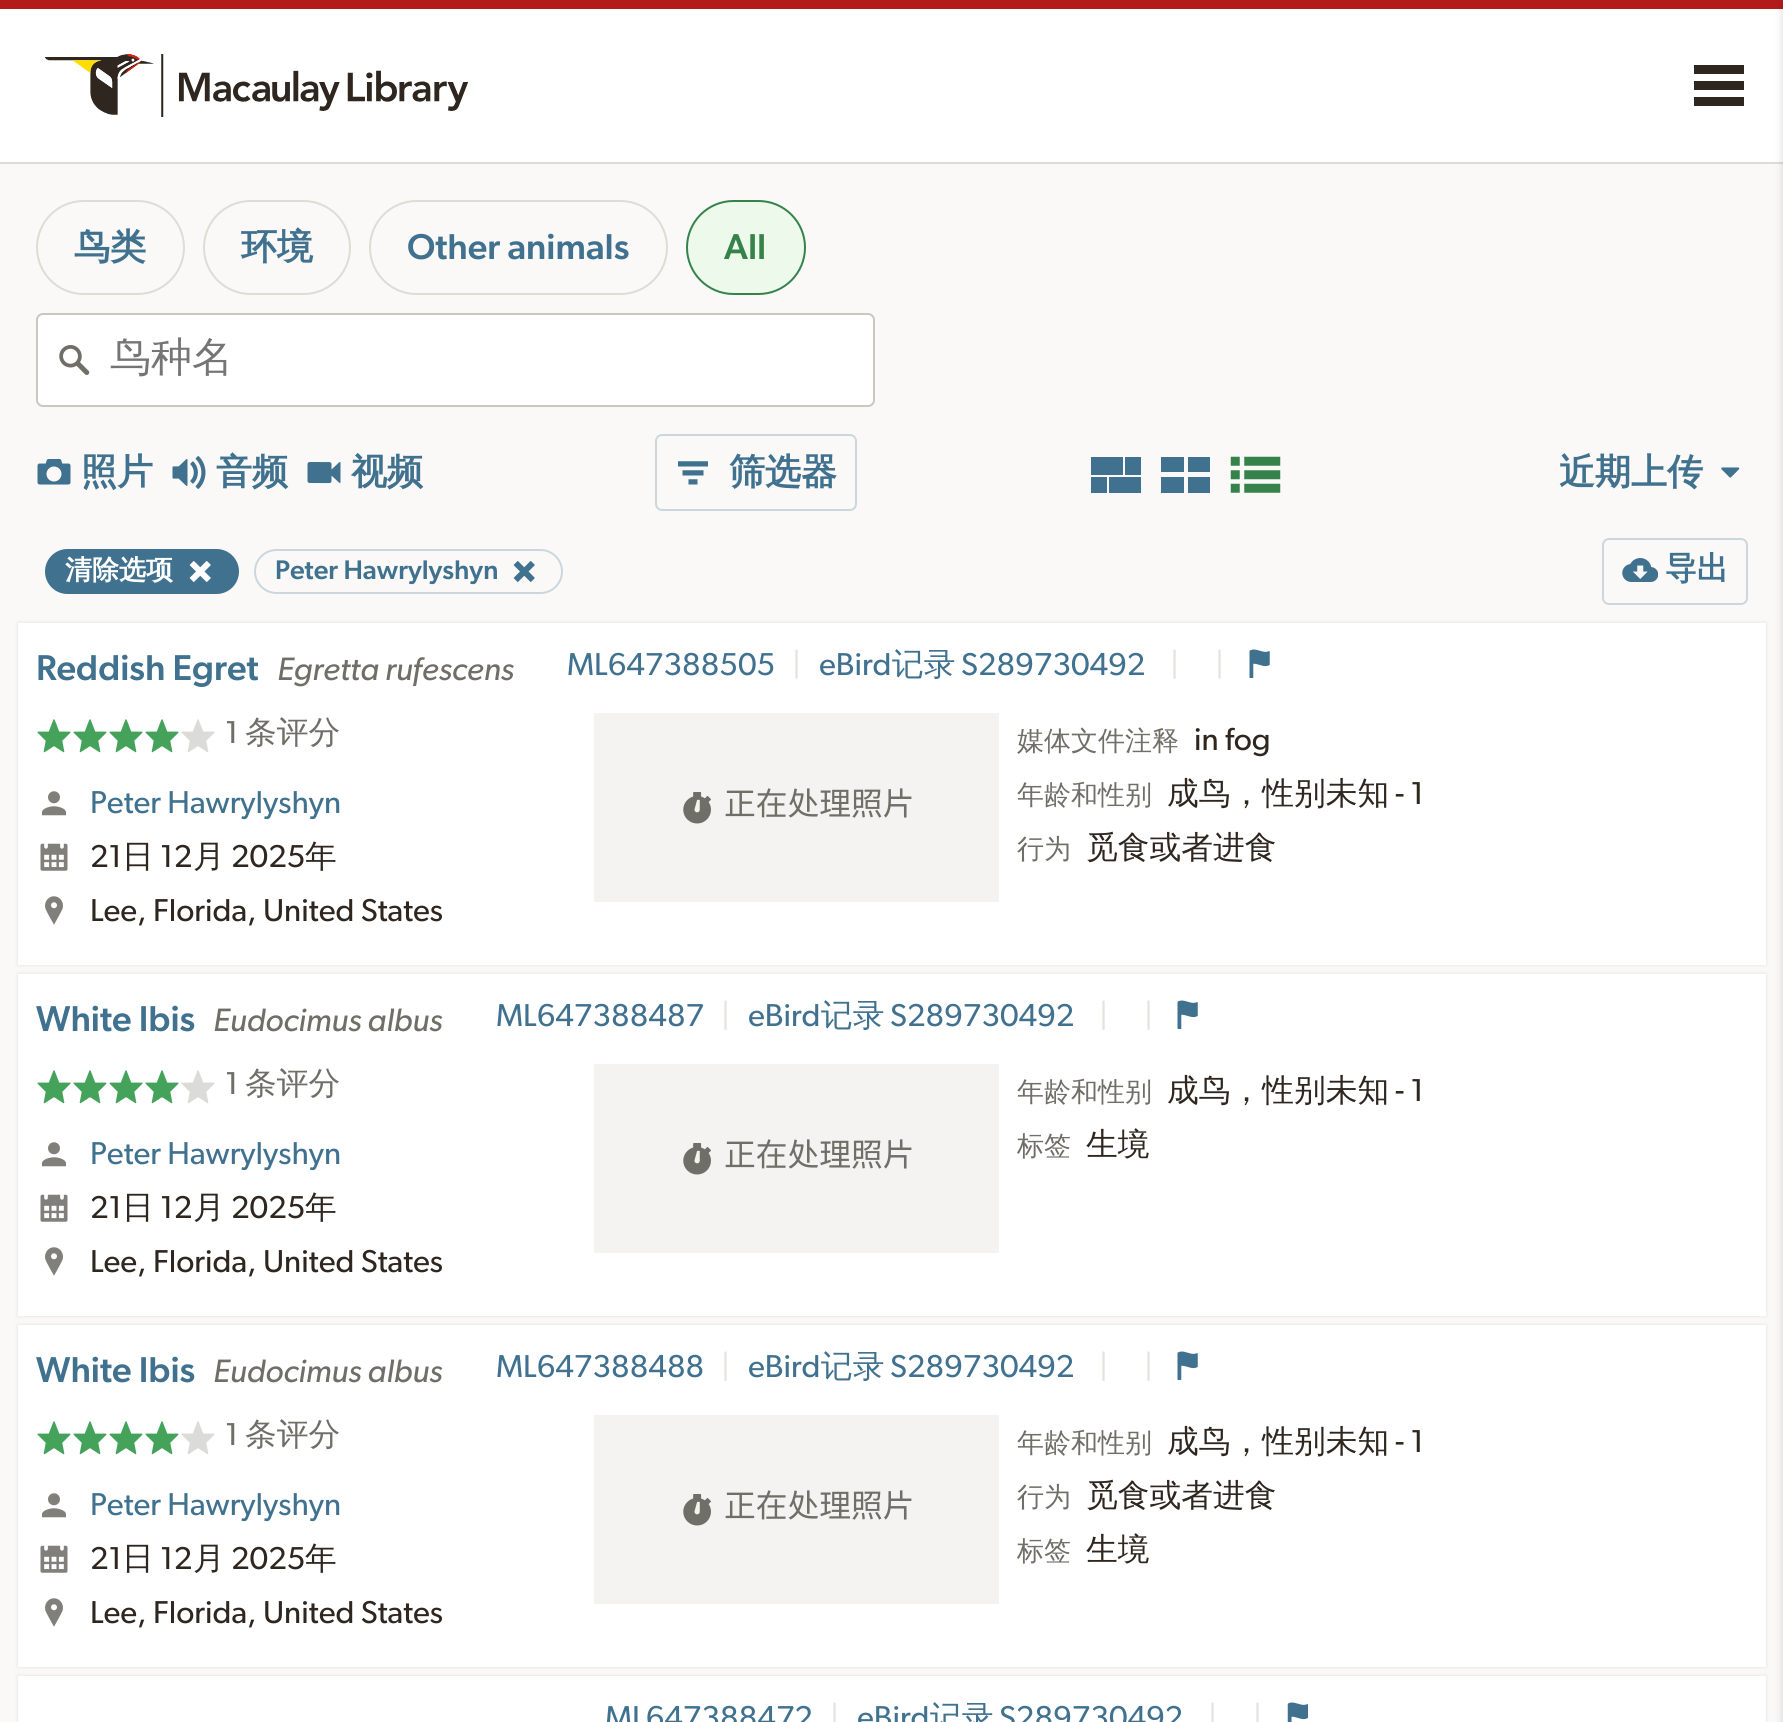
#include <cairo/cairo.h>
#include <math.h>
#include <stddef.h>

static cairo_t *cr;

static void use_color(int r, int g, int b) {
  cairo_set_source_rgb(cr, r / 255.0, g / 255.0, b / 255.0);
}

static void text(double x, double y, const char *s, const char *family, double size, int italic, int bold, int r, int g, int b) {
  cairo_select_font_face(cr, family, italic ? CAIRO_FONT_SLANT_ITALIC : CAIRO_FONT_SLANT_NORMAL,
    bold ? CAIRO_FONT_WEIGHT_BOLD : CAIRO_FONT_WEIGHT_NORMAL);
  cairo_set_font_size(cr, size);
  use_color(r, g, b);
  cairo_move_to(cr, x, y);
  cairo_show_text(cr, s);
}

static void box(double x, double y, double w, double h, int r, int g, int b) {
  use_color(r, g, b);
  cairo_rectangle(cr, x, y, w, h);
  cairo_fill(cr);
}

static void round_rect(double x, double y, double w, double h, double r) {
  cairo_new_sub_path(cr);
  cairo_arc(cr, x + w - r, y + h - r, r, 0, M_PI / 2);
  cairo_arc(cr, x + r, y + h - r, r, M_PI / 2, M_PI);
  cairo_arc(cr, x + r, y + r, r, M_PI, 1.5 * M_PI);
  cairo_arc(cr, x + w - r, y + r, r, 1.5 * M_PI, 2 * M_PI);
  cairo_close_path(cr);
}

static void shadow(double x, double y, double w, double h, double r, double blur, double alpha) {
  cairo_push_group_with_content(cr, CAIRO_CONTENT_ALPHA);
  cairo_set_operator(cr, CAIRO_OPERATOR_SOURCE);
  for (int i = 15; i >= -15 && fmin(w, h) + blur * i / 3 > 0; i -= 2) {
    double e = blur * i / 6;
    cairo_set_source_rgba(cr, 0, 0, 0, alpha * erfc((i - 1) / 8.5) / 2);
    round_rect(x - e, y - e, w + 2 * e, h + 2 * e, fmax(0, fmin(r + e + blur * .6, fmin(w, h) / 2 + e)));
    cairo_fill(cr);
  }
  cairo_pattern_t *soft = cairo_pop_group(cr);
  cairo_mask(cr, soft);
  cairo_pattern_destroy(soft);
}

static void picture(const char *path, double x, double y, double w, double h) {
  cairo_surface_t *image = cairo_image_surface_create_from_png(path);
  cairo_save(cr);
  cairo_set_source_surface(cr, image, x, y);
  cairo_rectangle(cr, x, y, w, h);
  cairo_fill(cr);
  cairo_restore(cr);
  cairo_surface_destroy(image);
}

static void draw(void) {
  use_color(255, 255, 255);
  cairo_paint(cr);
  box(0, 0, 1783, 9, 179, 27, 27);
  box(0, 162, 1783, 2, 219, 219, 217);
  picture("img_01.png", 45, 54, 423, 63);
  use_color(46, 38, 31);
  cairo_set_fill_rule(cr, CAIRO_FILL_RULE_EVEN_ODD);
  cairo_new_path(cr);
  cairo_move_to(cr, 1694, 65);
  cairo_line_to(cr, 1744, 65);
  cairo_line_to(cr, 1744, 74);
  cairo_line_to(cr, 1694, 74);
  cairo_close_path(cr);
  cairo_move_to(cr, 1694, 81);
  cairo_line_to(cr, 1744, 81);
  cairo_line_to(cr, 1744, 90);
  cairo_line_to(cr, 1694, 90);
  cairo_close_path(cr);
  cairo_move_to(cr, 1694, 97);
  cairo_line_to(cr, 1744, 97);
  cairo_line_to(cr, 1744, 106);
  cairo_line_to(cr, 1694, 106);
  cairo_close_path(cr);
  cairo_fill(cr);
  box(0, 164, 1783, 1558, 250, 249, 247);
  use_color(0, 0, 0);
  shadow(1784, 5, 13, 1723, 0, 4.5, 0.2);
  round_rect(37, 201, 147, 93, 46.5);
  use_color(221, 220, 213);
  cairo_stroke(cr);
  round_rect(204, 201, 146, 93, 46.5);
  cairo_stroke(cr);
  round_rect(370, 201, 297, 93, 46.5);
  cairo_stroke(cr);
  use_color(236, 249, 235);
  round_rect(687, 201, 118, 93, 46.5);
  cairo_fill_preserve(cr);
  use_color(54, 130, 75);
  cairo_stroke(cr);
  use_color(255, 255, 255);
  round_rect(37, 314, 837, 92, 6);
  cairo_fill_preserve(cr);
  use_color(200, 199, 192);
  cairo_stroke(cr);
  picture("img_02.png", 59, 345, 31, 30);
  picture("img_03.png", 37, 459, 34, 26);
  picture("img_04.png", 172, 456, 34, 33);
  picture("img_05.png", 307, 462, 34, 22);
  round_rect(656, 435, 200, 75, 6);
  use_color(204, 215, 221);
  cairo_stroke(cr);
  picture("img_06.png", 678, 461, 30, 24);
  use_color(64, 113, 143);
  cairo_new_path(cr);
  cairo_move_to(cr, 1091, 457);
  cairo_line_to(cr, 1123, 457);
  cairo_line_to(cr, 1123, 475);
  cairo_line_to(cr, 1091, 475);
  cairo_close_path(cr);
  cairo_move_to(cr, 1125, 457);
  cairo_line_to(cr, 1141, 457);
  cairo_line_to(cr, 1141, 475);
  cairo_line_to(cr, 1125, 475);
  cairo_close_path(cr);
  cairo_move_to(cr, 1109, 477);
  cairo_line_to(cr, 1141, 477);
  cairo_line_to(cr, 1141, 493);
  cairo_line_to(cr, 1109, 493);
  cairo_close_path(cr);
  cairo_move_to(cr, 1091, 477);
  cairo_line_to(cr, 1107, 477);
  cairo_line_to(cr, 1107, 493);
  cairo_line_to(cr, 1091, 493);
  cairo_close_path(cr);
  cairo_fill(cr);
  cairo_new_path(cr);
  cairo_move_to(cr, 1161, 457);
  cairo_line_to(cr, 1184, 457);
  cairo_line_to(cr, 1184, 472);
  cairo_line_to(cr, 1161, 472);
  cairo_close_path(cr);
  cairo_move_to(cr, 1188, 457);
  cairo_line_to(cr, 1210, 457);
  cairo_line_to(cr, 1210, 472);
  cairo_line_to(cr, 1188, 472);
  cairo_close_path(cr);
  cairo_move_to(cr, 1161, 477);
  cairo_line_to(cr, 1184, 477);
  cairo_line_to(cr, 1184, 493);
  cairo_line_to(cr, 1161, 493);
  cairo_close_path(cr);
  cairo_move_to(cr, 1188, 477);
  cairo_line_to(cr, 1210, 477);
  cairo_line_to(cr, 1210, 493);
  cairo_line_to(cr, 1188, 493);
  cairo_close_path(cr);
  cairo_fill(cr);
  picture("img_07.png", 1230, 456, 51, 37);
  picture("img_08.png", 1721, 467, 19, 11);
  round_rect(45, 549, 194, 45, 22.5);
  cairo_fill(cr);
  picture("img_09.png", 189, 561, 22, 21);
  round_rect(255, 550, 307, 43, 21.5);
  use_color(204, 215, 221);
  cairo_stroke(cr);
  picture("img_10.png", 513, 561, 22, 21);
  round_rect(1603, 539, 144, 65, 6);
  cairo_stroke(cr);
  picture("img_11.png", 1622, 558, 36, 24);
  use_color(0, 0, 0);
  shadow(18, 623, 1748, 342, 0, 2, 0.1);
  box(18, 623, 1748, 342, 255, 255, 255);
  picture("img_12.png", 1249, 649, 21, 29);
  picture("img_13.png", 37, 719, 34, 34);
  picture("img_13.png", 73, 719, 34, 34);
  picture("img_13.png", 109, 719, 34, 34);
  picture("img_13.png", 145, 719, 34, 34);
  picture("img_14.png", 181, 719, 34, 34);
  picture("img_15.png", 42, 791, 24, 25);
  picture("img_16.png", 40, 843, 28, 28);
  picture("img_17.png", 45, 896, 18, 29);
  box(594, 713, 405, 189, 244, 243, 241);
  picture("img_18.png", 683, 792, 28, 32);
  use_color(0, 0, 0);
  shadow(18, 974, 1748, 342, 0, 2, 0.1);
  box(18, 974, 1748, 342, 255, 255, 255);
  picture("img_12.png", 1177, 1000, 21, 29);
  picture("img_13.png", 37, 1070, 34, 34);
  picture("img_13.png", 73, 1070, 34, 34);
  picture("img_13.png", 109, 1070, 34, 34);
  picture("img_13.png", 145, 1070, 34, 34);
  picture("img_14.png", 181, 1070, 34, 34);
  picture("img_15.png", 42, 1142, 24, 25);
  picture("img_16.png", 40, 1194, 28, 28);
  picture("img_17.png", 45, 1247, 18, 29);
  box(594, 1064, 405, 189, 244, 243, 241);
  picture("img_18.png", 683, 1143, 28, 32);
  use_color(0, 0, 0);
  shadow(18, 1325, 1748, 342, 0, 2, 0.1);
  box(18, 1325, 1748, 342, 255, 255, 255);
  picture("img_12.png", 1177, 1351, 21, 29);
  picture("img_13.png", 37, 1421, 34, 34);
  picture("img_13.png", 73, 1421, 34, 34);
  picture("img_13.png", 109, 1421, 34, 34);
  picture("img_13.png", 145, 1421, 34, 34);
  picture("img_14.png", 181, 1421, 34, 34);
  picture("img_15.png", 42, 1493, 24, 25);
  picture("img_16.png", 40, 1545, 28, 28);
  picture("img_17.png", 45, 1598, 18, 29);
  box(594, 1415, 405, 189, 244, 243, 241);
  picture("img_18.png", 683, 1494, 28, 32);
  use_color(0, 0, 0);
  shadow(18, 1676, 1748, 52, 0, 2, 0.1);
  box(18, 1676, 1748, 46, 255, 255, 255);
  picture("img_19.png", 1287, 1702, 21, 20);
  text(74, 259, "鸟类", "WenQuanYi Zen Hei", 36, 0, 1, 64, 113, 143);
  text(241, 259, "环境", "WenQuanYi Zen Hei", 36, 0, 1, 64, 113, 143);
  text(407, 259, "Other animals", "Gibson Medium", 36, 0, 0, 64, 113, 143);
  text(724, 259, "All", "Gibson Medium", 36, 0, 0, 54, 130, 75);
  text(110, 371, "鸟种名", "WenQuanYi Zen Hei Medium", 41, 0, 0, 117, 117, 117);
  text(81, 484, "照片", "WenQuanYi Zen Hei", 36, 0, 1, 64, 113, 143);
  text(216, 484, "音频", "WenQuanYi Zen Hei", 36, 0, 1, 64, 113, 143);
  text(351, 484, "视频", "WenQuanYi Zen Hei", 36, 0, 1, 64, 113, 143);
  text(729, 484, "筛选器", "WenQuanYi Zen Hei", 36, 0, 1, 64, 113, 143);
  text(1559, 484, "近期上传", "WenQuanYi Zen Hei", 36, 0, 1, 64, 113, 143);
  text(65, 579, "清除选项", "WenQuanYi Zen Hei", 27, 0, 1, 255, 255, 255);
  text(275, 579, "Peter Hawrylyshyn", "Gibson Medium", 27, 0, 0, 64, 113, 143);
  text(1665, 579, "导出", "WenQuanYi Zen Hei", 31.75, 0, 1, 64, 113, 143);
  text(36, 680, "Reddish Egret", "Gibson Medium", 36, 0, 0, 64, 113, 143);
  text(277, 680, "Egretta rufescens", "Gibson", 32.5, 1, 0, 111, 110, 103);
  text(567, 675, "ML647388505", "Gibson", 31.75, 0, 0, 64, 113, 143);
  text(792, 675, "|", "Gibson", 31.75, 0, 0, 229, 227, 220);
  text(819, 675, "eBird", "Gibson", 31.75, 0, 0, 64, 113, 143);
  text(892, 675, "记录", "WenQuanYi Zen Hei Medium", 31.75, 0, 0, 64, 113, 143);
  text(961, 675, "S289730492", "Gibson", 31.75, 0, 0, 64, 113, 143);
  text(1170, 675, "|", "Gibson", 31.75, 0, 0, 229, 227, 220);
  text(1215, 675, "|", "Gibson", 31.75, 0, 0, 229, 227, 220);
  text(225, 743, "1", "Gibson", 31.75, 0, 0, 111, 110, 103);
  text(245, 743, "条评分", "WenQuanYi Zen Hei Medium", 31.75, 0, 0, 111, 110, 103);
  text(90, 813, "Peter Hawrylyshyn", "Gibson", 31.75, 0, 0, 64, 113, 143);
  text(90, 867, "21", "Gibson", 31.75, 0, 0, 46, 38, 31);
  text(122, 867, "日", "WenQuanYi Zen Hei Medium", 31.75, 0, 0, 46, 38, 31);
  text(160, 867, "12", "Gibson", 31.75, 0, 0, 46, 38, 31);
  text(193, 867, "月", "WenQuanYi Zen Hei Medium", 31.75, 0, 0, 46, 38, 31);
  text(231, 867, "2025", "Gibson", 31.75, 0, 0, 46, 38, 31);
  text(305, 867, "年", "WenQuanYi Zen Hei Medium", 31.75, 0, 0, 46, 38, 31);
  text(90, 921, "Lee, Florida, United States", "Gibson", 31.75, 0, 0, 46, 38, 31);
  text(724, 815, "正在处理照片", "Noto Sans CJK SC", 31.75, 0, 0, 111, 110, 103);
  text(1017, 750, "媒体文件注释", "WenQuanYi Zen Hei Medium", 27, 0, 0, 111, 110, 103);
  text(1194, 750, "in fog", "Gibson", 31.75, 0, 0, 46, 38, 31);
  text(1017, 804, "年龄和性别", "WenQuanYi Zen Hei Medium", 27, 0, 0, 111, 110, 103);
  text(1167, 804, "成鸟，性别未知", "WenQuanYi Zen Hei Medium", 31.75, 0, 0, 46, 38, 31);
  text(1395, 804, "- 1", "Gibson", 31.75, 0, 0, 46, 38, 31);
  text(1017, 858, "行为", "WenQuanYi Zen Hei Medium", 27, 0, 0, 111, 110, 103);
  text(1086, 858, "觅食或者进食", "WenQuanYi Zen Hei Medium", 31.75, 0, 0, 46, 38, 31);
  text(36, 1031, "White Ibis", "Gibson Medium", 36, 0, 0, 64, 113, 143);
  text(213, 1031, "Eudocimus albus", "Gibson", 32.5, 1, 0, 111, 110, 103);
  text(496, 1026, "ML647388487", "Gibson", 31.75, 0, 0, 64, 113, 143);
  text(721, 1026, "|", "Gibson", 31.75, 0, 0, 229, 227, 220);
  text(748, 1026, "eBird", "Gibson", 31.75, 0, 0, 64, 113, 143);
  text(821, 1026, "记录", "WenQuanYi Zen Hei Medium", 31.75, 0, 0, 64, 113, 143);
  text(890, 1026, "S289730492", "Gibson", 31.75, 0, 0, 64, 113, 143);
  text(1099, 1026, "|", "Gibson", 31.75, 0, 0, 229, 227, 220);
  text(1144, 1026, "|", "Gibson", 31.75, 0, 0, 229, 227, 220);
  text(225, 1094, "1", "Gibson", 31.75, 0, 0, 111, 110, 103);
  text(245, 1094, "条评分", "WenQuanYi Zen Hei Medium", 31.75, 0, 0, 111, 110, 103);
  text(90, 1164, "Peter Hawrylyshyn", "Gibson", 31.75, 0, 0, 64, 113, 143);
  text(90, 1218, "21", "Gibson", 31.75, 0, 0, 46, 38, 31);
  text(122, 1218, "日", "WenQuanYi Zen Hei Medium", 31.75, 0, 0, 46, 38, 31);
  text(160, 1218, "12", "Gibson", 31.75, 0, 0, 46, 38, 31);
  text(193, 1218, "月", "WenQuanYi Zen Hei Medium", 31.75, 0, 0, 46, 38, 31);
  text(231, 1218, "2025", "Gibson", 31.75, 0, 0, 46, 38, 31);
  text(305, 1218, "年", "WenQuanYi Zen Hei Medium", 31.75, 0, 0, 46, 38, 31);
  text(90, 1272, "Lee, Florida, United States", "Gibson", 31.75, 0, 0, 46, 38, 31);
  text(724, 1166, "正在处理照片", "Noto Sans CJK SC", 31.75, 0, 0, 111, 110, 103);
  text(1017, 1101, "年龄和性别", "WenQuanYi Zen Hei Medium", 27, 0, 0, 111, 110, 103);
  text(1167, 1101, "成鸟，性别未知", "WenQuanYi Zen Hei Medium", 31.75, 0, 0, 46, 38, 31);
  text(1395, 1101, "- 1", "Gibson", 31.75, 0, 0, 46, 38, 31);
  text(1017, 1155, "标签", "WenQuanYi Zen Hei Medium", 27, 0, 0, 111, 110, 103);
  text(1086, 1155, "生境", "WenQuanYi Zen Hei Medium", 31.75, 0, 0, 46, 38, 31);
  text(36, 1382, "White Ibis", "Gibson Medium", 36, 0, 0, 64, 113, 143);
  text(213, 1382, "Eudocimus albus", "Gibson", 32.5, 1, 0, 111, 110, 103);
  text(496, 1377, "ML647388488", "Gibson", 31.75, 0, 0, 64, 113, 143);
  text(721, 1377, "|", "Gibson", 31.75, 0, 0, 229, 227, 220);
  text(748, 1377, "eBird", "Gibson", 31.75, 0, 0, 64, 113, 143);
  text(821, 1377, "记录", "WenQuanYi Zen Hei Medium", 31.75, 0, 0, 64, 113, 143);
  text(890, 1377, "S289730492", "Gibson", 31.75, 0, 0, 64, 113, 143);
  text(1099, 1377, "|", "Gibson", 31.75, 0, 0, 229, 227, 220);
  text(1144, 1377, "|", "Gibson", 31.75, 0, 0, 229, 227, 220);
  text(225, 1445, "1", "Gibson", 31.75, 0, 0, 111, 110, 103);
  text(245, 1445, "条评分", "WenQuanYi Zen Hei Medium", 31.75, 0, 0, 111, 110, 103);
  text(90, 1515, "Peter Hawrylyshyn", "Gibson", 31.75, 0, 0, 64, 113, 143);
  text(90, 1569, "21", "Gibson", 31.75, 0, 0, 46, 38, 31);
  text(122, 1569, "日", "WenQuanYi Zen Hei Medium", 31.75, 0, 0, 46, 38, 31);
  text(160, 1569, "12", "Gibson", 31.75, 0, 0, 46, 38, 31);
  text(193, 1569, "月", "WenQuanYi Zen Hei Medium", 31.75, 0, 0, 46, 38, 31);
  text(231, 1569, "2025", "Gibson", 31.75, 0, 0, 46, 38, 31);
  text(305, 1569, "年", "WenQuanYi Zen Hei Medium", 31.75, 0, 0, 46, 38, 31);
  text(90, 1623, "Lee, Florida, United States", "Gibson", 31.75, 0, 0, 46, 38, 31);
  text(724, 1517, "正在处理照片", "Noto Sans CJK SC", 31.75, 0, 0, 111, 110, 103);
  text(1017, 1452, "年龄和性别", "WenQuanYi Zen Hei Medium", 27, 0, 0, 111, 110, 103);
  text(1167, 1452, "成鸟，性别未知", "WenQuanYi Zen Hei Medium", 31.75, 0, 0, 46, 38, 31);
  text(1395, 1452, "- 1", "Gibson", 31.75, 0, 0, 46, 38, 31);
  text(1017, 1506, "行为", "WenQuanYi Zen Hei Medium", 27, 0, 0, 111, 110, 103);
  text(1086, 1506, "觅食或者进食", "WenQuanYi Zen Hei Medium", 31.75, 0, 0, 46, 38, 31);
  text(1017, 1560, "标签", "WenQuanYi Zen Hei Medium", 27, 0, 0, 111, 110, 103);
  text(1086, 1560, "生境", "WenQuanYi Zen Hei Medium", 31.75, 0, 0, 46, 38, 31);
  text(605, 1728, "ML647388472", "Gibson", 31.75, 0, 0, 64, 113, 143);
  text(830, 1728, "|", "Gibson", 31.75, 0, 0, 229, 227, 220);
  text(857, 1728, "eBird", "Gibson", 31.75, 0, 0, 64, 113, 143);
  text(930, 1728, "记录", "WenQuanYi Zen Hei Medium", 31.75, 0, 0, 64, 113, 143);
  text(999, 1728, "S289730492", "Gibson", 31.75, 0, 0, 64, 113, 143);
  text(1208, 1728, "|", "Gibson", 31.75, 0, 0, 229, 227, 220);
  text(1253, 1728, "|", "Gibson", 31.75, 0, 0, 229, 227, 220);
}

int main(void) {
  cairo_surface_t *surface = cairo_image_surface_create(CAIRO_FORMAT_RGB24, 1783, 1722);
  cr = cairo_create(surface);
  cairo_font_options_t *options = cairo_font_options_create();
  cairo_font_options_set_hint_metrics(options, CAIRO_HINT_METRICS_OFF);
  cairo_font_options_set_hint_style(options, CAIRO_HINT_STYLE_NONE);
  cairo_set_font_options(cr, options);
  cairo_set_miter_limit(cr, 4);
  draw();
  cairo_surface_write_to_png(surface, "out.png");
  cairo_font_options_destroy(options);
  cairo_destroy(cr);
  cairo_surface_destroy(surface);
  return 0;
}
